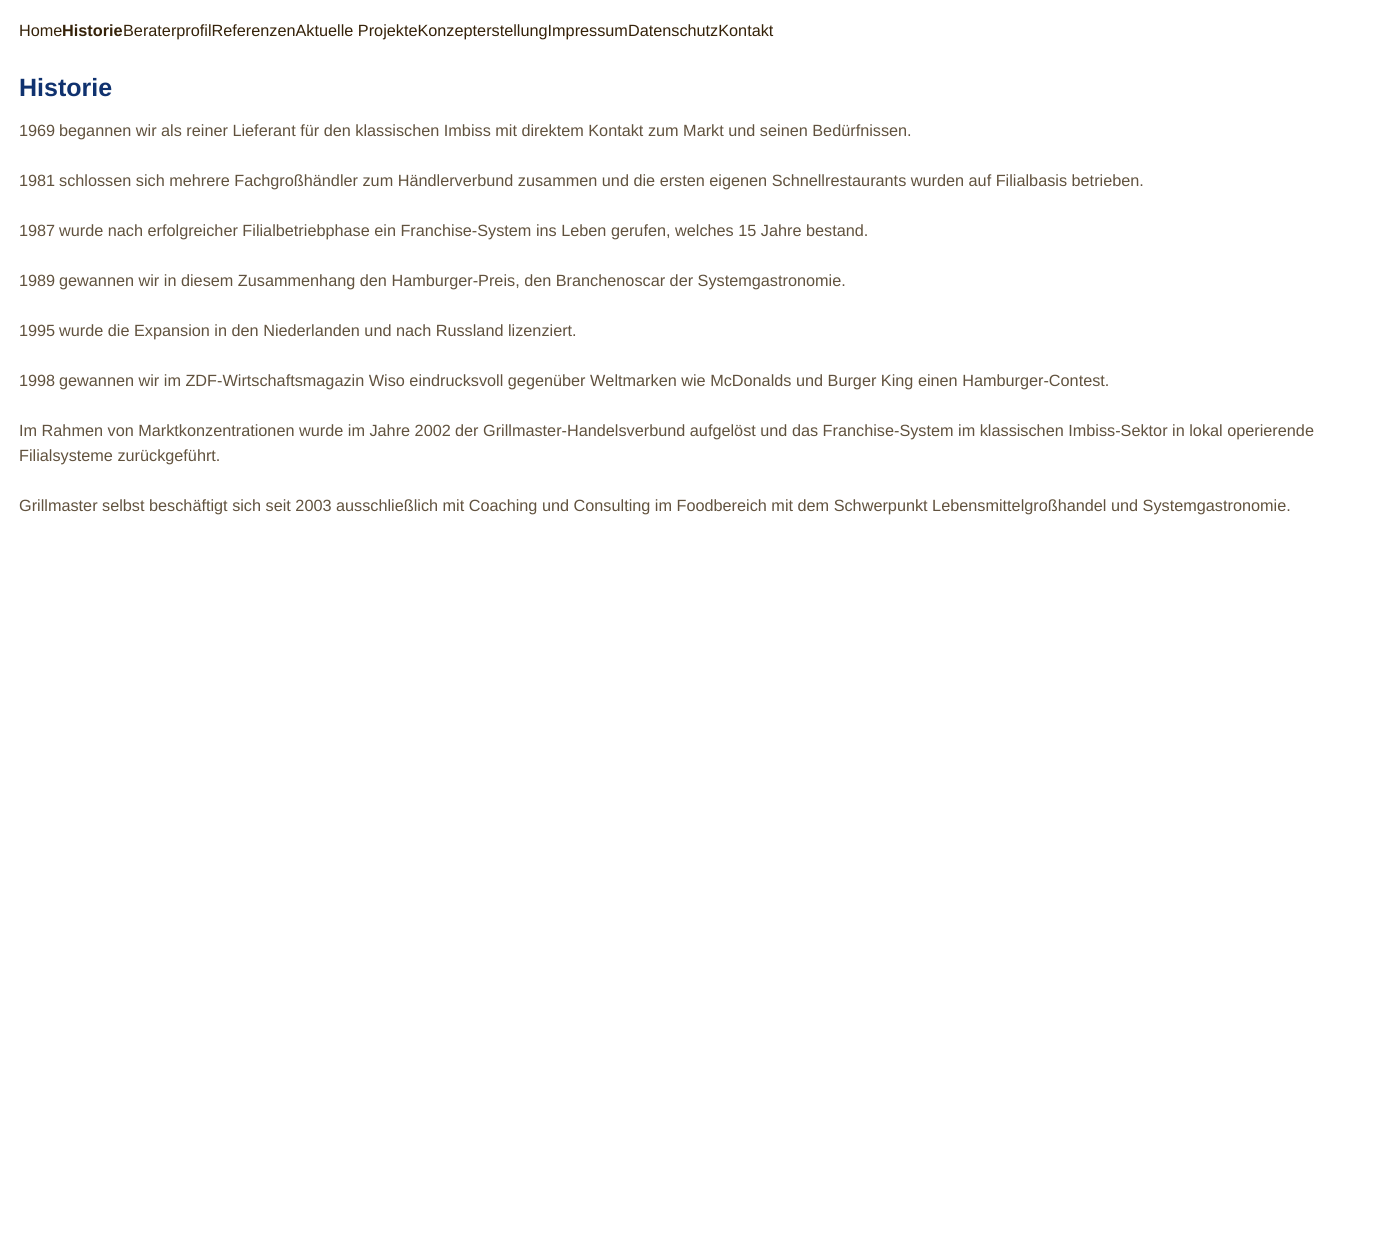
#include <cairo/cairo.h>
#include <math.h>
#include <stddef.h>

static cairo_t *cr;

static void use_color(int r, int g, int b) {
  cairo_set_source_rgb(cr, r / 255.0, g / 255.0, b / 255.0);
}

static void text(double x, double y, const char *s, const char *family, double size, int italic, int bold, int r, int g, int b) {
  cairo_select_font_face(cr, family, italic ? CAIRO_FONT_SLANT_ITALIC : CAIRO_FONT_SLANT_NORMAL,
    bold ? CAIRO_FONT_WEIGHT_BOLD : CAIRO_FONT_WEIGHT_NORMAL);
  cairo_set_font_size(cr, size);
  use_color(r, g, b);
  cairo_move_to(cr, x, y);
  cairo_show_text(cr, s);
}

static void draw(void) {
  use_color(255, 255, 255);
  cairo_paint(cr);
  text(19, 36, "Home", "Liberation Sans", 16.25, 0, 0, 53, 34, 9);
  text(62, 36, "Historie", "Liberation Sans", 16.25, 0, 1, 53, 34, 9);
  text(123, 36, "BeraterprofilReferenzenAktuelle ProjekteKonzepterstellungImpressumDatenschutzKontakt", "Liberation Sans", 16.25, 0, 0, 53, 34, 9);
  text(19, 96, "Historie", "Liberation Sans", 25, 0, 1, 16, 50, 111);
  text(19, 136, "1969", "Liberation Sans", 16.25, 0, 0, 97, 82, 62);
  text(59, 136, "begannen wir als reiner Lieferant für den klassischen Imbiss mit direktem Kontakt zum Markt und seinen Bedürfnissen.", "Liberation Sans", 16.25, 0, 0, 97, 82, 62);
  text(19, 186, "1981", "Liberation Sans", 16.25, 0, 0, 97, 82, 62);
  text(59, 186, "schlossen sich mehrere Fachgroßhändler zum Händlerverbund zusammen und die ersten eigenen Schnellrestaurants wurden auf Filialbasis betrieben.", "Liberation Sans", 16.25, 0, 0, 97, 82, 62);
  text(19, 236, "1987", "Liberation Sans", 16.25, 0, 0, 97, 82, 62);
  text(59, 236, "wurde nach erfolgreicher Filialbetriebphase ein Franchise-System ins Leben gerufen, welches 15 Jahre bestand.", "Liberation Sans", 16.25, 0, 0, 97, 82, 62);
  text(19, 286, "1989", "Liberation Sans", 16.25, 0, 0, 97, 82, 62);
  text(59, 286, "gewannen wir in diesem Zusammenhang den Hamburger-Preis, den Branchenoscar der Systemgastronomie.", "Liberation Sans", 16.25, 0, 0, 97, 82, 62);
  text(19, 336, "1995", "Liberation Sans", 16.25, 0, 0, 97, 82, 62);
  text(59, 336, "wurde die Expansion in den Niederlanden und nach Russland lizenziert.", "Liberation Sans", 16.25, 0, 0, 97, 82, 62);
  text(19, 386, "1998", "Liberation Sans", 16.25, 0, 0, 97, 82, 62);
  text(59, 386, "gewannen wir im ZDF-Wirtschaftsmagazin Wiso eindrucksvoll gegenüber Weltmarken wie McDonalds und Burger King einen Hamburger-Contest.", "Liberation Sans", 16.25, 0, 0, 97, 82, 62);
  text(19, 436, "Im Rahmen von Marktkonzentrationen wurde im Jahre 2002", "Liberation Sans", 16.25, 0, 0, 97, 82, 62);
  text(455, 436, "der Grillmaster-Handelsverbund aufgelöst und das Franchise-System im klassischen Imbiss-Sektor in lokal operierende", "Liberation Sans", 16.25, 0, 0, 97, 82, 62);
  text(19, 461, "Filialsysteme zurückgeführt.", "Liberation Sans", 16.25, 0, 0, 97, 82, 62);
  text(19, 511, "Grillmaster selbst beschäftigt sich seit 2003", "Liberation Sans", 16.25, 0, 0, 97, 82, 62);
  text(336, 511, "ausschließlich mit Coaching und Consulting im Foodbereich mit dem Schwerpunkt Lebensmittelgroßhandel und Systemgastronomie.", "Liberation Sans", 16.25, 0, 0, 97, 82, 62);
}

int main(void) {
  cairo_surface_t *surface = cairo_image_surface_create(CAIRO_FORMAT_RGB24, 1393, 1243);
  cr = cairo_create(surface);
  cairo_font_options_t *options = cairo_font_options_create();
  cairo_font_options_set_hint_metrics(options, CAIRO_HINT_METRICS_OFF);
  cairo_font_options_set_hint_style(options, CAIRO_HINT_STYLE_NONE);
  cairo_set_font_options(cr, options);
  cairo_set_miter_limit(cr, 4);
  draw();
  cairo_surface_write_to_png(surface, "out.png");
  cairo_font_options_destroy(options);
  cairo_destroy(cr);
  cairo_surface_destroy(surface);
  return 0;
}
